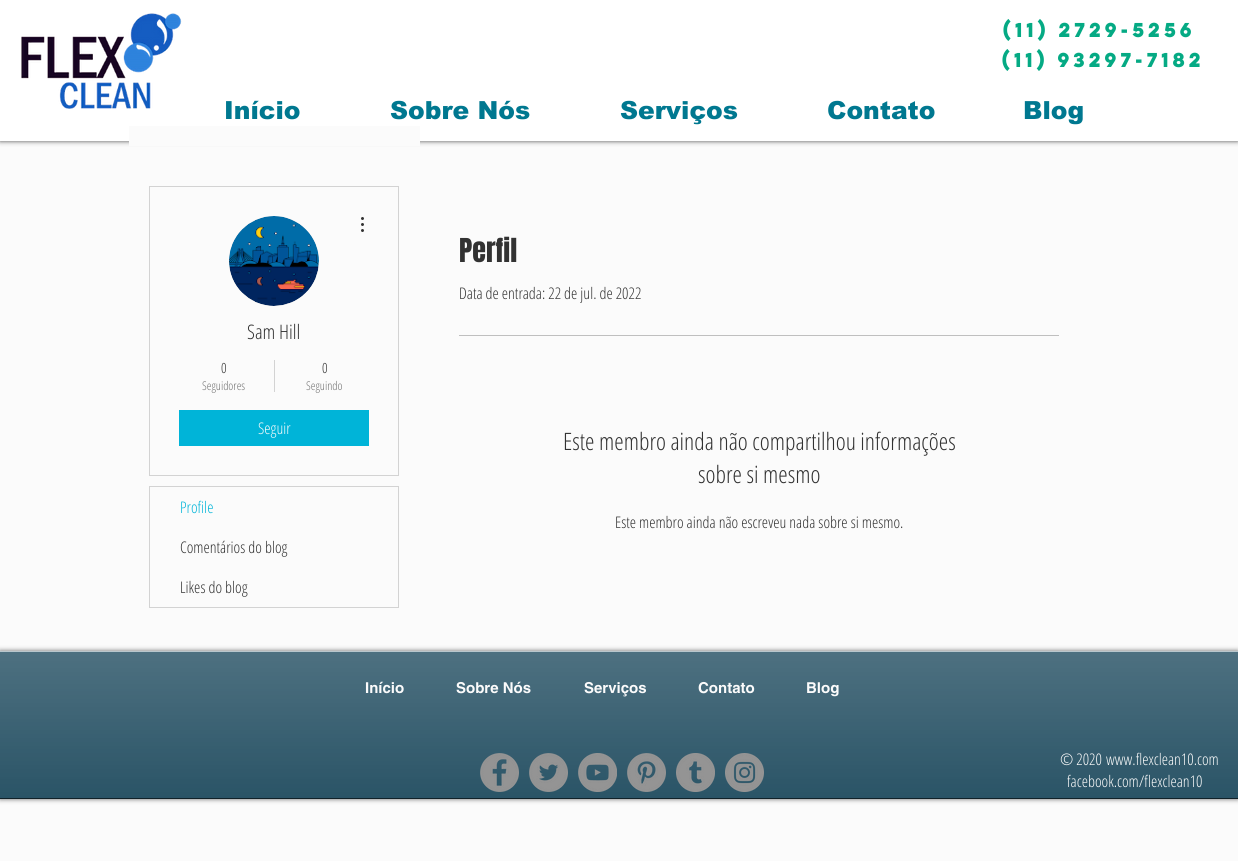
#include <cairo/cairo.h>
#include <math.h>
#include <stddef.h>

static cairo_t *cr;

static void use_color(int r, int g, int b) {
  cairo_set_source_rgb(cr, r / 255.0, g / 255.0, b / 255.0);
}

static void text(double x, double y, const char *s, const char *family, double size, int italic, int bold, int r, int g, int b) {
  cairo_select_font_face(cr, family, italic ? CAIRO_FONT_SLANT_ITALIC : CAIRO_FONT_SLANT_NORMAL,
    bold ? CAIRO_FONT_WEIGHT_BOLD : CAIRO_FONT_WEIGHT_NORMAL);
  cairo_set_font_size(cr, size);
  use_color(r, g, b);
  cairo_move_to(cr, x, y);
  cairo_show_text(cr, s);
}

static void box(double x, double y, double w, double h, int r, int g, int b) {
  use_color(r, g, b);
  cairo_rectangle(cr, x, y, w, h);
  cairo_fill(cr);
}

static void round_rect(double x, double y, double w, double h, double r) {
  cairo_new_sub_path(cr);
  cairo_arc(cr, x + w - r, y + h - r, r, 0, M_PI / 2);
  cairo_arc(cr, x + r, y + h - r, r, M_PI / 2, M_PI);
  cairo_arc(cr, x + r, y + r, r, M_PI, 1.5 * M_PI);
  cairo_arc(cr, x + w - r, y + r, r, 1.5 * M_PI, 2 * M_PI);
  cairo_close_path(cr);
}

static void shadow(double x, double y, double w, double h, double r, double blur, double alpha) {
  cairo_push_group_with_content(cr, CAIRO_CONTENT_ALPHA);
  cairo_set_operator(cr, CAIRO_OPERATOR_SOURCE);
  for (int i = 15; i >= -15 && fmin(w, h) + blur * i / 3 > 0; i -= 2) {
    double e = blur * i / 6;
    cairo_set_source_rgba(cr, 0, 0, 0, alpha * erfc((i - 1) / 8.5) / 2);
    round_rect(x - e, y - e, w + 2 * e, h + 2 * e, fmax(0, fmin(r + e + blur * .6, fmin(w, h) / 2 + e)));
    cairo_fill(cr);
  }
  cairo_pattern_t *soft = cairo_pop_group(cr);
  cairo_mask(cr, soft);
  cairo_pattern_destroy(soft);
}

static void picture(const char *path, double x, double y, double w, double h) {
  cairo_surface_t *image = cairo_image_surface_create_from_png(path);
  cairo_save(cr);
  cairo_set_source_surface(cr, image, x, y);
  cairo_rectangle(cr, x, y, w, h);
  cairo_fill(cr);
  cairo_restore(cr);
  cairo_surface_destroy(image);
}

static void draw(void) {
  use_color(251, 251, 251);
  cairo_paint(cr);
  use_color(0, 0, 0);
  shadow(0, 0, 1238, 141, 0, 2.5, 0.7);
  box(0, 0, 1238, 141, 255, 255, 255);
  picture("img_01.png", 21, 13, 161, 96);
  box(129, 126, 291, 20, 251, 251, 251);
  cairo_rectangle(cr, 149.5, 186.5, 249, 289);
  use_color(211, 211, 211);
  cairo_set_line_width(cr, 1);
  cairo_stroke(cr);
  use_color(216, 216, 216);
  cairo_arc(cr, 274, 261, 45, 0, 2 * M_PI);
  cairo_fill(cr);
  picture("img_02.png", 229, 216, 90, 90);
  picture("img_03.png", 361, 217, 3, 15);
  box(274, 360, 1, 32, 211, 211, 211);
  box(179, 410, 190, 36, 0, 180, 216);
  cairo_rectangle(cr, 149.5, 486.5, 249, 121);
  use_color(211, 211, 211);
  cairo_stroke(cr);
  box(459, 335, 600, 1, 191, 191, 191);
  use_color(0, 0, 0);
  shadow(0, 651, 1238, 148, 0, 2.5, 0.6);
  box(0, 652, 1238, 146, 16, 63, 84);
  picture("img_04.png", 0, 652, 1238, 146);
  box(0, 798, 1238, 1, 17, 34, 41);
  box(0, 651, 1238, 1, 184, 198, 204);
  picture("img_05.png", 480, 753, 39, 39);
  picture("img_06.png", 529, 753, 39, 39);
  picture("img_07.png", 578, 753, 39, 39);
  picture("img_08.png", 627, 753, 39, 39);
  picture("img_09.png", 676, 753, 39, 39);
  picture("img_10.png", 725, 753, 39, 39);
  text(1003, 37, "(11) 2729-5256", "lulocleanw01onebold", 18, 0, 1, 5, 170, 132);
  text(1002, 67, "(11) 93297-7182", "lulocleanw01onebold", 18, 0, 1, 5, 170, 132);
  text(224, 119, "Início", "arial Black", 25, 0, 0, 0, 120, 144);
  text(390, 119, "Sobre Nós", "arial Black", 25, 0, 0, 0, 120, 144);
  text(620, 119, "Serviços", "arial Black", 25, 0, 0, 0, 120, 144);
  text(827, 119, "Contato", "arial Black", 25, 0, 0, 0, 120, 144);
  text(1023, 119, "Blog", "arial Black", 25, 0, 0, 0, 120, 144);
  text(247, 339, "Sam Hill", "Open Sans Condensed Light", 20, 0, 0, 50, 50, 50);
  text(221, 373, "0", "Open Sans Condensed Light", 14, 0, 0, 50, 50, 50);
  text(202, 390, "Seguidores", "Open Sans Condensed Light", 12, 0, 0, 110, 110, 110);
  text(322, 373, "0", "Open Sans Condensed Light", 14, 0, 0, 50, 50, 50);
  text(306, 390, "Seguindo", "Open Sans Condensed Light", 12, 0, 0, 110, 110, 110);
  text(258, 434, "Seguir", "Open Sans Condensed Light", 16, 0, 0, 251, 251, 251);
  text(180, 513, "Profile", "Open Sans Condensed Light", 16, 0, 0, 0, 180, 216);
  text(180, 553, "Comentários do blog", "Open Sans Condensed Light", 16, 0, 0, 50, 50, 50);
  text(180, 593, "Likes do blog", "Open Sans Condensed Light", 16, 0, 0, 50, 50, 50);
  text(459, 262, "Perfil", "Anton", 28, 0, 0, 50, 50, 50);
  text(459, 299, "Data de entrada: 22 de jul. de 2022", "Open Sans Condensed Light", 16, 0, 0, 50, 50, 50);
  text(563, 450, "Este membro ainda não compartilhou informações", "Open Sans Condensed Light", 24, 0, 0, 50, 50, 50);
  text(698, 483, "sobre si mesmo", "Open Sans Condensed Light", 24, 0, 0, 50, 50, 50);
  text(615, 528, "Este membro ainda não escreveu nada sobre si mesmo.", "Open Sans Condensed Light", 16, 0, 0, 50, 50, 50);
  text(365, 693, "Início", "helvetica", 15, 0, 1, 251, 251, 251);
  text(456, 693, "Sobre Nós", "helvetica", 15, 0, 1, 251, 251, 251);
  text(584, 693, "Serviços", "helvetica", 15, 0, 1, 251, 251, 251);
  text(698, 693, "Contato", "helvetica", 15, 0, 1, 251, 251, 251);
  text(806, 693, "Blog", "helvetica", 15, 0, 1, 251, 251, 251);
  text(1060, 765, "© 2020", "Open Sans Condensed Light", 16, 0, 0, 251, 251, 251);
  text(1106, 765, "www.flexclean10.com", "Open Sans Condensed Light", 16, 0, 0, 251, 251, 251);
  text(1067, 787, "facebook.com/flexclean10", "Open Sans Condensed Light", 16, 0, 0, 251, 251, 251);
}

int main(void) {
  cairo_surface_t *surface = cairo_image_surface_create(CAIRO_FORMAT_RGB24, 1238, 861);
  cr = cairo_create(surface);
  cairo_font_options_t *options = cairo_font_options_create();
  cairo_font_options_set_hint_metrics(options, CAIRO_HINT_METRICS_OFF);
  cairo_font_options_set_hint_style(options, CAIRO_HINT_STYLE_NONE);
  cairo_set_font_options(cr, options);
  cairo_set_miter_limit(cr, 4);
  draw();
  cairo_surface_write_to_png(surface, "out.png");
  cairo_font_options_destroy(options);
  cairo_destroy(cr);
  cairo_surface_destroy(surface);
  return 0;
}
